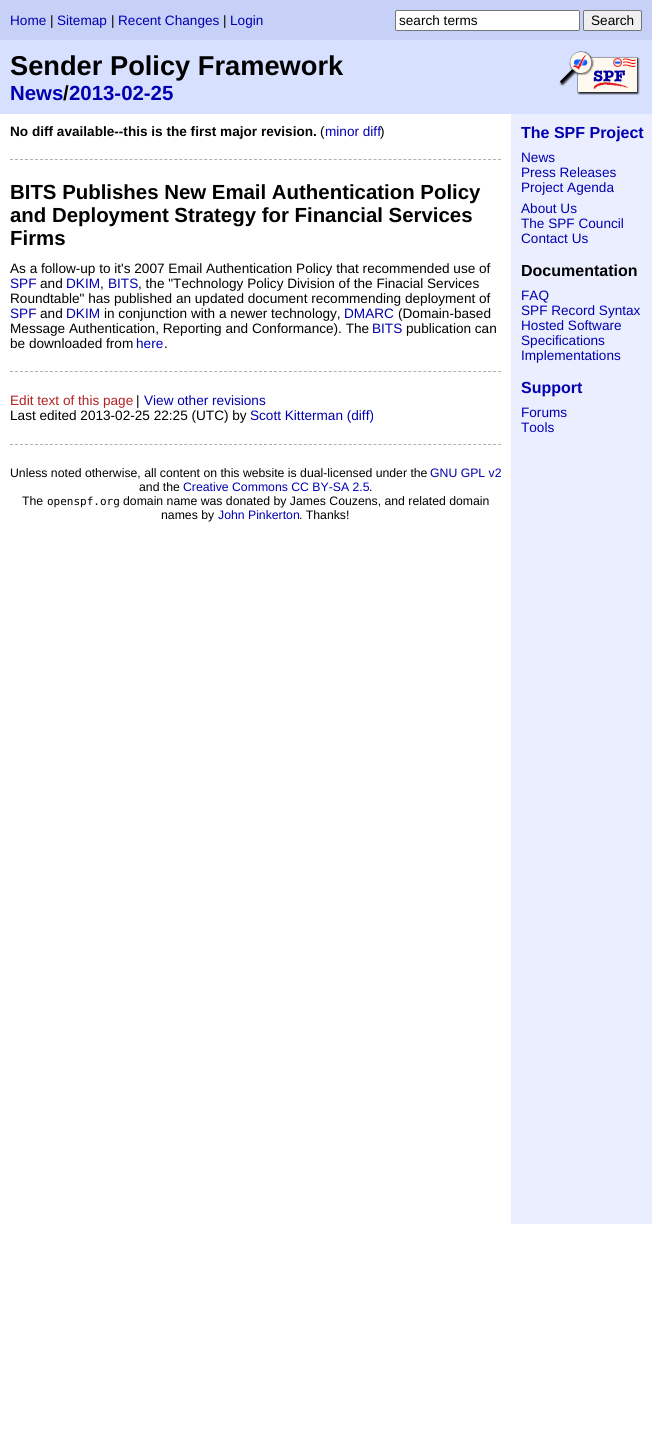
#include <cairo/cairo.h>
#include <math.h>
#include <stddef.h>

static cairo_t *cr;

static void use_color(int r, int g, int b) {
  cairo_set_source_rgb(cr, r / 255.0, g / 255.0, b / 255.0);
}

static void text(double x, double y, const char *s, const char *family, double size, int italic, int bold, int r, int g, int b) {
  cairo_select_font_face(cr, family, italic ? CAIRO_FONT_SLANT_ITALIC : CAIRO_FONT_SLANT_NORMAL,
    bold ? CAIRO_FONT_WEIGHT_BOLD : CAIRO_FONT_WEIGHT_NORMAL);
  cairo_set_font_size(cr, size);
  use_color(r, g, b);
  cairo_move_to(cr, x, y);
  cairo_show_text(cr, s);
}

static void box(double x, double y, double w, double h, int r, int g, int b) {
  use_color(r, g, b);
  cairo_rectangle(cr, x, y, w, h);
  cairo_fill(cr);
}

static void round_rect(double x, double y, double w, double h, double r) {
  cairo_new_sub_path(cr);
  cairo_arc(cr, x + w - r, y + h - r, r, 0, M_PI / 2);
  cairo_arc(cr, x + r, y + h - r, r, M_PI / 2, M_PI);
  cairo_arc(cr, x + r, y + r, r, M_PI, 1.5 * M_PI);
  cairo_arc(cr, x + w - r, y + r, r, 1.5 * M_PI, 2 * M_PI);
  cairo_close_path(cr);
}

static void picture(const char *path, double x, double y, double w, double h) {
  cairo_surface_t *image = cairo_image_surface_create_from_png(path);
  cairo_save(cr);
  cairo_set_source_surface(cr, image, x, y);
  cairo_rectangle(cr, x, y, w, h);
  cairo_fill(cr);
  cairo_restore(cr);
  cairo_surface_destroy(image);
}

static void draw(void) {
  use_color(255, 255, 255);
  cairo_paint(cr);
  box(0, 0, 652, 40, 199, 208, 247);
  use_color(255, 255, 255);
  round_rect(395.5, 10.5, 184, 20, 1.5);
  cairo_fill_preserve(cr);
  use_color(118, 118, 118);
  cairo_set_line_width(cr, 1);
  cairo_stroke(cr);
  use_color(239, 239, 239);
  round_rect(583.5, 10.5, 58, 20, 1.5);
  cairo_fill_preserve(cr);
  use_color(118, 118, 118);
  cairo_stroke(cr);
  box(0, 40, 652, 74, 216, 224, 255);
  picture("img_01.png", 559, 51, 81, 44);
  cairo_new_path(cr);
  cairo_move_to(cr, 10, 159.5);
  cairo_line_to(cr, 501, 159.5);
  use_color(176, 176, 176);
  cairo_set_dash(cr, (double[]){3, 1.98}, 2, 0);
  cairo_stroke(cr);
  cairo_new_path(cr);
  cairo_move_to(cr, 10, 371.5);
  cairo_line_to(cr, 501, 371.5);
  cairo_stroke(cr);
  cairo_new_path(cr);
  cairo_move_to(cr, 10, 444.5);
  cairo_line_to(cr, 501, 444.5);
  cairo_stroke(cr);
  box(511, 114, 141, 1110, 234, 238, 255);
  text(10, 25, "Home", "Liberation Sans", 13.6, 0, 0, 0, 0, 176);
  text(50, 25, "|", "Liberation Sans", 13.6, 0, 0, 0, 0, 0);
  text(57, 25, "Sitemap", "Liberation Sans", 13.6, 0, 0, 0, 0, 176);
  text(111, 25, "|", "Liberation Sans", 13.6, 0, 0, 0, 0, 0);
  text(118, 25, "Recent Changes", "Liberation Sans", 13.6, 0, 0, 0, 0, 176);
  text(223, 25, "|", "Liberation Sans", 13.6, 0, 0, 0, 0, 0);
  text(230, 25, "Login", "Liberation Sans", 13.6, 0, 0, 0, 0, 176);
  text(399, 25, "search terms", "Liberation Sans", 13.6, 0, 0, 0, 0, 0);
  text(591, 25, "Search", "Liberation Sans", 13.6, 0, 0, 0, 0, 0);
  text(10, 75, "Sender Policy Framework", "Liberation Sans", 27.25, 0, 1, 0, 0, 0);
  text(10, 100, "News 2013-02-25", "Liberation Sans", 20.4, 0, 1, 0, 0, 176);
  text(63, 100, "/", "Liberation Sans", 20.4, 0, 1, 0, 0, 0);
  text(10, 136, "No diff available--this is the first major revision.", "Liberation Sans", 13.6, 0, 1, 0, 0, 0);
  text(320, 136, "(", "Liberation Sans", 13.6, 0, 0, 0, 0, 0);
  text(325, 136, "minor diff", "Liberation Sans", 13.6, 0, 0, 0, 0, 176);
  text(380, 136, ")", "Liberation Sans", 13.6, 0, 0, 0, 0, 0);
  text(10, 199, "BITS Publishes New Email Authentication Policy", "Liberation Sans", 20.4, 0, 1, 0, 0, 0);
  text(10, 222, "and Deployment Strategy for Financial Services", "Liberation Sans", 20.4, 0, 1, 0, 0, 0);
  text(10, 245, "Firms", "Liberation Sans", 20.4, 0, 1, 0, 0, 0);
  text(10, 273, "As a follow-up to it's 2007 Email Authentication Policy that recommended use of", "Liberation Sans", 13.6, 0, 0, 0, 0, 0);
  text(10, 288, "SPF", "Liberation Sans", 13.6, 0, 0, 0, 0, 176);
  text(40, 288, "and", "Liberation Sans", 13.6, 0, 0, 0, 0, 0);
  text(66, 288, "DKIM", "Liberation Sans", 13.6, 0, 0, 0, 0, 176);
  text(100, 288, ",", "Liberation Sans", 13.6, 0, 0, 0, 0, 0);
  text(108, 288, "BITS", "Liberation Sans", 13.6, 0, 0, 0, 0, 176);
  text(138, 288, ", the \"Technology Policy Division of the Finacial Services", "Liberation Sans", 13.6, 0, 0, 0, 0, 0);
  text(10, 303, "Roundtable\" has published an updated document recommending deployment of", "Liberation Sans", 13.6, 0, 0, 0, 0, 0);
  text(10, 318, "SPF", "Liberation Sans", 13.6, 0, 0, 0, 0, 176);
  text(40, 318, "and", "Liberation Sans", 13.6, 0, 0, 0, 0, 0);
  text(66, 318, "DKIM", "Liberation Sans", 13.6, 0, 0, 0, 0, 176);
  text(104, 318, "in conjunction with a newer technology,", "Liberation Sans", 13.6, 0, 0, 0, 0, 0);
  text(344, 318, "DMARC", "Liberation Sans", 13.6, 0, 0, 0, 0, 176);
  text(398, 318, "(Domain-based", "Liberation Sans", 13.6, 0, 0, 0, 0, 0);
  text(10, 333, "Message Authentication, Reporting and Conformance). The", "Liberation Sans", 13.6, 0, 0, 0, 0, 0);
  text(372, 333, "BITS", "Liberation Sans", 13.6, 0, 0, 0, 0, 176);
  text(406, 333, "publication can", "Liberation Sans", 13.6, 0, 0, 0, 0, 0);
  text(10, 348, "be downloaded from", "Liberation Sans", 13.6, 0, 0, 0, 0, 0);
  text(136, 348, "here", "Liberation Sans", 13.6, 0, 0, 0, 0, 176);
  text(164, 348, ".", "Liberation Sans", 13.6, 0, 0, 0, 0, 0);
  text(10, 405, "Edit text of this page", "Liberation Sans", 13.6, 0, 0, 178, 34, 34);
  text(136, 405, "|", "Liberation Sans", 13.6, 0, 0, 0, 0, 0);
  text(144, 405, "View other revisions", "Liberation Sans", 13.6, 0, 0, 0, 0, 176);
  text(10, 420, "Last edited 2013-02-25 22:25 (UTC) by", "Liberation Sans", 13.6, 0, 0, 0, 0, 0);
  text(250, 420, "Scott Kitterman (diff)", "Liberation Sans", 13.6, 0, 0, 0, 0, 176);
  text(10, 477, "Unless noted otherwise, all content on this website is dual-licensed under the", "Liberation Sans", 12.25, 0, 0, 0, 0, 0);
  text(430, 477, "GNU GPL v2", "Liberation Sans", 12.25, 0, 0, 0, 0, 176);
  text(139, 491, "and the", "Liberation Sans", 12.25, 0, 0, 0, 0, 0);
  text(183, 491, "Creative Commons CC BY-SA 2.5", "Liberation Sans", 12.25, 0, 0, 0, 0, 176);
  text(369, 491, ".", "Liberation Sans", 12.25, 0, 0, 0, 0, 0);
  text(22, 505, "The", "Liberation Sans", 12.25, 0, 0, 0, 0, 0);
  text(47, 505, "openspf.org", "DejaVu Sans Mono", 11, 0, 0, 0, 0, 0);
  text(123, 505, "domain name was donated by James Couzens, and related domain", "Liberation Sans", 12.25, 0, 0, 0, 0, 0);
  text(161, 519, "names by", "Liberation Sans", 12.25, 0, 0, 0, 0, 0);
  text(218, 519, "John Pinkerton", "Liberation Sans", 12.25, 0, 0, 0, 0, 176);
  text(299, 519, ". Thanks!", "Liberation Sans", 12.25, 0, 0, 0, 0, 0);
  text(521, 138, "The SPF Project", "Liberation Sans", 16, 0, 1, 0, 0, 176);
  text(521, 162, "News", "Liberation Sans", 13.6, 0, 0, 0, 0, 176);
  text(521, 177, "Press Releases", "Liberation Sans", 13.6, 0, 0, 0, 0, 176);
  text(521, 192, "Project Agenda", "Liberation Sans", 13.6, 0, 0, 0, 0, 176);
  text(521, 213, "About Us", "Liberation Sans", 13.6, 0, 0, 0, 0, 176);
  text(521, 228, "The SPF Council", "Liberation Sans", 13.6, 0, 0, 0, 0, 176);
  text(521, 243, "Contact Us", "Liberation Sans", 13.6, 0, 0, 0, 0, 176);
  text(521, 276, "Documentation", "Liberation Sans", 16, 0, 1, 0, 0, 0);
  text(521, 300, "FAQ", "Liberation Sans", 13.6, 0, 0, 0, 0, 176);
  text(521, 315, "SPF Record Syntax", "Liberation Sans", 13.6, 0, 0, 0, 0, 176);
  text(521, 330, "Hosted Software", "Liberation Sans", 13.6, 0, 0, 0, 0, 176);
  text(521, 345, "Specifications", "Liberation Sans", 13.6, 0, 0, 0, 0, 176);
  text(521, 360, "Implementations", "Liberation Sans", 13.6, 0, 0, 0, 0, 176);
  text(521, 393, "Support", "Liberation Sans", 16, 0, 1, 0, 0, 176);
  text(521, 417, "Forums", "Liberation Sans", 13.6, 0, 0, 0, 0, 176);
  text(521, 432, "Tools", "Liberation Sans", 13.6, 0, 0, 0, 0, 176);
}

int main(void) {
  cairo_surface_t *surface = cairo_image_surface_create(CAIRO_FORMAT_RGB24, 652, 1454);
  cr = cairo_create(surface);
  cairo_font_options_t *options = cairo_font_options_create();
  cairo_font_options_set_hint_metrics(options, CAIRO_HINT_METRICS_OFF);
  cairo_font_options_set_hint_style(options, CAIRO_HINT_STYLE_NONE);
  cairo_set_font_options(cr, options);
  cairo_set_miter_limit(cr, 4);
  draw();
  cairo_surface_write_to_png(surface, "out.png");
  cairo_font_options_destroy(options);
  cairo_destroy(cr);
  cairo_surface_destroy(surface);
  return 0;
}
